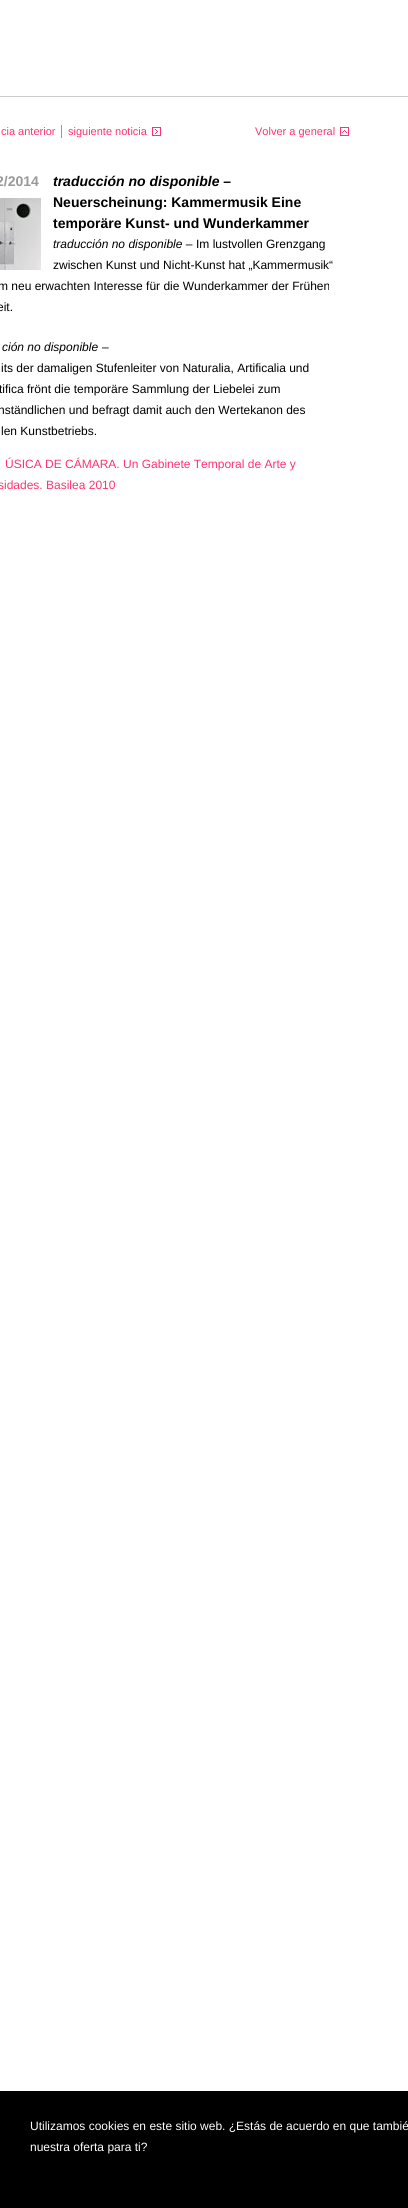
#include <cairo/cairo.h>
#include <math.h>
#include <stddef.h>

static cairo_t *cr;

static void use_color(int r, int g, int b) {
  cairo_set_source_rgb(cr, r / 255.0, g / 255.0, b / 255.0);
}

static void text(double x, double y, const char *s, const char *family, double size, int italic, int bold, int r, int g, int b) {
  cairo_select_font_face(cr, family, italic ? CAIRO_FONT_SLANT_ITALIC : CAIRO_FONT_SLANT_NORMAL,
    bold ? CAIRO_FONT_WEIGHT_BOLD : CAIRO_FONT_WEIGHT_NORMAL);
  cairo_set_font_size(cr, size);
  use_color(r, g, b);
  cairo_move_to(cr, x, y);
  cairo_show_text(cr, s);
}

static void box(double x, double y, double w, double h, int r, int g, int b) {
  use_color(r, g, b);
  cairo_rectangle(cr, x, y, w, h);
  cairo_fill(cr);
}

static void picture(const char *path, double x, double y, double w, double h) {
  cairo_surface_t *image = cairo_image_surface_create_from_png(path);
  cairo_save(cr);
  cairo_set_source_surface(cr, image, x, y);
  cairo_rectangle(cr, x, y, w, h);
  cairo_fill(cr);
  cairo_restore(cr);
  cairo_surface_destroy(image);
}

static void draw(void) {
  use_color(255, 255, 255);
  cairo_paint(cr);
  box(0, 96, 408, 1, 204, 204, 204);
  box(61, 125, 1, 13, 153, 153, 153);
  picture("img_01.png", 152, 127, 9, 9);
  picture("img_02.png", 340, 127, 9, 9);
  picture("img_03.png", 0, 198, 41, 72);
  box(0, 2091, 408, 117, 0, 0, 0);
  text(1, 135, "cia anterior", "Liberation Sans", 11, 0, 0, 255, 51, 112);
  text(68, 135, "siguiente noticia", "Liberation Sans", 11, 0, 0, 255, 51, 112);
  text(255, 135, "Volver a general", "Liberation Sans", 11, 0, 0, 255, 51, 112);
  text(-4, 186, "2/2014", "Liberation Sans", 14, 0, 1, 153, 153, 153);
  text(53, 186, "traducción no disponible –", "Liberation Sans", 14, 1, 1, 0, 0, 0);
  text(53, 207, "Neuerscheinung: Kammermusik Eine", "Liberation Sans", 14, 0, 1, 0, 0, 0);
  text(53, 228, "temporäre Kunst- und Wunderkammer", "Liberation Sans", 14, 0, 1, 0, 0, 0);
  text(53, 248, "traducción no disponible –", "Liberation Sans", 12, 1, 0, 0, 0, 0);
  text(196, 248, "Im lustvollen Grenzgang", "Liberation Sans", 12, 0, 0, 0, 0, 0);
  text(53, 269, "zwischen Kunst und Nicht-Kunst hat „Kammermusik“", "Liberation Sans", 12, 0, 0, 0, 0, 0);
  text(-2, 290, "m neu erwachten Interesse für die Wunderkammer der Frühen", "Liberation Sans", 12, 0, 0, 0, 0, 0);
  text(-3, 311, "eit.", "Liberation Sans", 12, 0, 0, 0, 0, 0);
  text(2, 351, "ción no disponible", "Liberation Sans", 12, 1, 0, 0, 0, 0);
  text(102, 351, "–", "Liberation Sans", 12, 0, 0, 0, 0, 0);
  text(1, 372, "its der damaligen Stufenleiter von Naturalia, Artificalia und", "Liberation Sans", 12, 0, 0, 0, 0, 0);
  text(-1, 393, "tifica frönt die temporäre Sammlung der Liebelei zum", "Liberation Sans", 12, 0, 0, 0, 0, 0);
  text(-2, 414, "nständlichen und befragt damit auch den Wertekanon des", "Liberation Sans", 12, 0, 0, 0, 0, 0);
  text(1, 435, "len Kunstbetriebs.", "Liberation Sans", 12, 0, 0, 0, 0, 0);
  text(5, 468, "ÚSICA DE CÁMARA. Un Gabinete Temporal de Arte y", "Liberation Sans", 12, 0, 0, 255, 51, 112);
  text(-2, 489, "sidades. Basilea 2010", "Liberation Sans", 12, 0, 0, 255, 51, 112);
  text(30, 2130, "Utilizamos cookies en este sitio web. ¿Estás de acuerdo en que tambié", "Liberation Sans", 12, 0, 0, 255, 255, 255);
  text(30, 2151, "nuestra oferta para ti?", "Liberation Sans", 12, 0, 0, 255, 255, 255);
}

int main(void) {
  cairo_surface_t *surface = cairo_image_surface_create(CAIRO_FORMAT_RGB24, 408, 2208);
  cr = cairo_create(surface);
  cairo_font_options_t *options = cairo_font_options_create();
  cairo_font_options_set_hint_metrics(options, CAIRO_HINT_METRICS_OFF);
  cairo_font_options_set_hint_style(options, CAIRO_HINT_STYLE_NONE);
  cairo_set_font_options(cr, options);
  cairo_set_miter_limit(cr, 4);
  draw();
  cairo_surface_write_to_png(surface, "out.png");
  cairo_font_options_destroy(options);
  cairo_destroy(cr);
  cairo_surface_destroy(surface);
  return 0;
}
